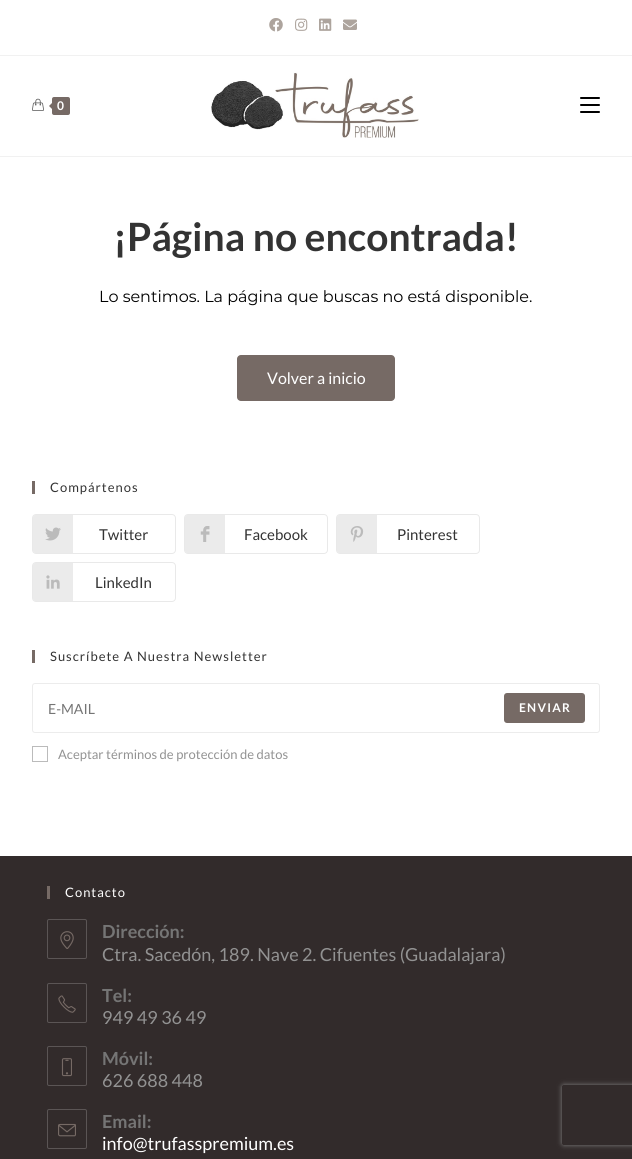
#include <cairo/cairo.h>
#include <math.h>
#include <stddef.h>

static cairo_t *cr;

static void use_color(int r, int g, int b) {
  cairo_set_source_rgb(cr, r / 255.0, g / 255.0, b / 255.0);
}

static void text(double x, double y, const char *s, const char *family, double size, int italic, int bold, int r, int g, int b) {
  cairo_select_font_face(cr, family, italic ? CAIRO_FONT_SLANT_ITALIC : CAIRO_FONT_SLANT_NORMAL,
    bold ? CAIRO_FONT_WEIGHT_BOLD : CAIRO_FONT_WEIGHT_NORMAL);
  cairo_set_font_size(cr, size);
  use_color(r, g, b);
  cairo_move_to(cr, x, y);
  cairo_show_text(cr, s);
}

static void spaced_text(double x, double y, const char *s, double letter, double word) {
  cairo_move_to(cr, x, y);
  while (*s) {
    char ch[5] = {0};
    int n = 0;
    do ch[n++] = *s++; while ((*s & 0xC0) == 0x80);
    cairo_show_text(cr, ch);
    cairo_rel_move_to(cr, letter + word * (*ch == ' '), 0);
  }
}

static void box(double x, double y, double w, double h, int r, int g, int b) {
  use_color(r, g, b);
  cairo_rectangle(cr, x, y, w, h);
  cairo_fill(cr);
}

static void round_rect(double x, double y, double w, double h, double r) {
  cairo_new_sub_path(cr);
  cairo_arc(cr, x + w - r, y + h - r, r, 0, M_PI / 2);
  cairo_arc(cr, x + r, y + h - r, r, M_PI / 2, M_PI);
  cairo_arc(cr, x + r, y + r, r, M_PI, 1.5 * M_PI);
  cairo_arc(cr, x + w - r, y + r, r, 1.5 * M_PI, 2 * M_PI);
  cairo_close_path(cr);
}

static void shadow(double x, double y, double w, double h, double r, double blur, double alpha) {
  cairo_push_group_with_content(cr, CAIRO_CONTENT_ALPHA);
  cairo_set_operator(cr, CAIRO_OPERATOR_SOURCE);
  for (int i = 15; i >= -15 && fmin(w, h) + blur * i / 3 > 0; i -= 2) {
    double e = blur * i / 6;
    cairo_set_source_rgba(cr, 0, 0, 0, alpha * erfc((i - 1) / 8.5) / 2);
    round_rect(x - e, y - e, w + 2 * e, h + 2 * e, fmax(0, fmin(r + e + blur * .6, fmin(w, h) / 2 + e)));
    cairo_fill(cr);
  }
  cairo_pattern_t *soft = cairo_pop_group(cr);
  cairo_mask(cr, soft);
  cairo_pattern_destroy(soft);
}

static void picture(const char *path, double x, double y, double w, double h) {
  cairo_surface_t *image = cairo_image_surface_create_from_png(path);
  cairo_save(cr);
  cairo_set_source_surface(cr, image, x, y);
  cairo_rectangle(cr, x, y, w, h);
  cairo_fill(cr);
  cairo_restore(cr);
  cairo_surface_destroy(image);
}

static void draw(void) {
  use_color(255, 255, 255);
  cairo_paint(cr);
  box(0, 55, 632, 1, 241, 241, 241);
  picture("img_01.png", 269, 18, 14, 14);
  picture("img_02.png", 295, 18, 13, 13);
  picture("img_03.png", 319, 18, 13, 13);
  picture("img_04.png", 343, 19, 14, 11);
  box(0, 156, 632, 1, 241, 241, 241);
  picture("img_05.png", 32, 98, 12, 13);
  use_color(118, 106, 101);
  round_rect(52, 97, 18, 18, 2);
  cairo_fill(cr);
  cairo_new_path(cr);
  cairo_move_to(cr, 54, 101);
  cairo_line_to(cr, 54, 111);
  cairo_line_to(cr, 49, 106);
  cairo_close_path(cr);
  cairo_fill(cr);
  picture("img_06.png", 211, 72, 208, 66);
  use_color(0, 0, 0);
  round_rect(580, 111, 20, 2, 1);
  cairo_fill(cr);
  round_rect(580, 97, 20, 2, 1);
  cairo_fill(cr);
  round_rect(580, 104, 20, 2, 1);
  cairo_fill(cr);
  use_color(118, 106, 101);
  round_rect(237, 355, 158, 46, 4);
  cairo_fill(cr);
  box(32, 481, 3, 13, 118, 106, 101);
  round_rect(32.5, 514.5, 143, 39, 3.5);
  use_color(233, 233, 233);
  cairo_set_line_width(cr, 1);
  cairo_stroke(cr);
  cairo_set_source_rgba(cr, 0, 0, 0, 0.08);
  cairo_new_path(cr);
  cairo_move_to(cr, 36, 515);
  cairo_line_to(cr, 73, 515);
  cairo_line_to(cr, 73, 553);
  cairo_line_to(cr, 36, 553);
  cairo_curve_to(cr, 34.5, 553, 33, 551.5, 33, 550);
  cairo_line_to(cr, 33, 518);
  cairo_curve_to(cr, 33, 516.5, 34.5, 515, 36, 515);
  cairo_close_path(cr);
  cairo_fill(cr);
  picture("img_07.png", 45, 527, 16, 14);
  round_rect(184.5, 514.5, 143, 39, 3.5);
  use_color(233, 233, 233);
  cairo_stroke(cr);
  cairo_set_source_rgba(cr, 0, 0, 0, 0.08);
  cairo_new_path(cr);
  cairo_move_to(cr, 188, 515);
  cairo_line_to(cr, 225, 515);
  cairo_line_to(cr, 225, 553);
  cairo_line_to(cr, 188, 553);
  cairo_curve_to(cr, 186.5, 553, 185, 551.5, 185, 550);
  cairo_line_to(cr, 185, 518);
  cairo_curve_to(cr, 185, 516.5, 186.5, 515, 188, 515);
  cairo_close_path(cr);
  cairo_fill(cr);
  picture("img_08.png", 200, 526, 10, 16);
  round_rect(336.5, 514.5, 143, 39, 3.5);
  use_color(233, 233, 233);
  cairo_stroke(cr);
  cairo_set_source_rgba(cr, 0, 0, 0, 0.08);
  cairo_new_path(cr);
  cairo_move_to(cr, 340, 515);
  cairo_line_to(cr, 377, 515);
  cairo_line_to(cr, 377, 553);
  cairo_line_to(cr, 340, 553);
  cairo_curve_to(cr, 338.5, 553, 337, 551.5, 337, 550);
  cairo_line_to(cr, 337, 518);
  cairo_curve_to(cr, 337, 516.5, 338.5, 515, 340, 515);
  cairo_close_path(cr);
  cairo_fill(cr);
  picture("img_09.png", 350, 526, 14, 16);
  round_rect(32.5, 562.5, 143, 39, 3.5);
  use_color(233, 233, 233);
  cairo_stroke(cr);
  cairo_set_source_rgba(cr, 0, 0, 0, 0.08);
  cairo_new_path(cr);
  cairo_move_to(cr, 36, 563);
  cairo_line_to(cr, 73, 563);
  cairo_line_to(cr, 73, 601);
  cairo_line_to(cr, 36, 601);
  cairo_curve_to(cr, 34.5, 601, 33, 599.5, 33, 598);
  cairo_line_to(cr, 33, 566);
  cairo_curve_to(cr, 33, 564.5, 34.5, 563, 36, 563);
  cairo_close_path(cr);
  cairo_fill(cr);
  picture("img_10.png", 46, 575, 14, 14);
  box(32, 650, 3, 13, 118, 106, 101);
  round_rect(32.5, 683.5, 567, 49, 2.5);
  use_color(236, 236, 236);
  cairo_stroke(cr);
  use_color(118, 106, 101);
  round_rect(504, 693, 81, 30, 3);
  cairo_fill(cr);
  cairo_rectangle(cr, 32.5, 746.5, 15, 15);
  use_color(187, 187, 187);
  cairo_stroke(cr);
  box(0, 856, 632, 303, 50, 43, 43);
  box(47, 886, 3, 13, 118, 106, 101);
  round_rect(47.5, 919.5, 39, 39, 1.5);
  use_color(91, 85, 85);
  cairo_stroke(cr);
  picture("img_11.png", 60, 931, 14, 18);
  round_rect(47.5, 983.5, 39, 39, 1.5);
  cairo_stroke(cr);
  picture("img_12.png", 58, 995, 18, 18);
  round_rect(47.5, 1046.5, 39, 39, 1.5);
  cairo_stroke(cr);
  picture("img_13.png", 61, 1058, 11, 19);
  round_rect(47.5, 1109.5, 39, 39, 1.5);
  cairo_stroke(cr);
  picture("img_14.png", 58, 1123, 18, 14);
  cairo_save(cr);
  cairo_set_fill_rule(cr, CAIRO_FILL_RULE_EVEN_ODD);
  cairo_new_path(cr);
  cairo_move_to(cr, 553, 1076);
  cairo_line_to(cr, 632, 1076);
  cairo_line_to(cr, 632, 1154);
  cairo_line_to(cr, 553, 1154);
  cairo_close_path(cr);
  cairo_move_to(cr, 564, 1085);
  cairo_line_to(cr, 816, 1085);
  cairo_curve_to(cr, 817, 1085, 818, 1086, 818, 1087);
  cairo_line_to(cr, 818, 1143);
  cairo_curve_to(cr, 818, 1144, 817, 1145, 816, 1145);
  cairo_line_to(cr, 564, 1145);
  cairo_curve_to(cr, 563, 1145, 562, 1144, 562, 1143);
  cairo_line_to(cr, 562, 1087);
  cairo_curve_to(cr, 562, 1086, 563, 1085, 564, 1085);
  cairo_close_path(cr);
  cairo_clip(cr);
  use_color(128, 128, 128);
  shadow(562, 1085, 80, 60, 2, 2.5, 1);
  cairo_restore(cr);
  cairo_select_font_face(cr, "Lato", CAIRO_FONT_SLANT_NORMAL, CAIRO_FONT_WEIGHT_BOLD);
  cairo_set_font_size(cr, 12);
  use_color(255, 255, 255);
  spaced_text(57, 110, "0", 1, 0);
  text(113, 251, "¡Página no encontrada!", "Lato", 39, 0, 1, 51, 51, 51);
  text(99, 302, "Lo sentimos. La página que buscas no está disponible.", "Montserrat", 16, 0, 0, 0, 0, 0);
  text(267, 384, "Volver a inicio", "Lato", 16, 0, 0, 255, 255, 255);
  cairo_set_font_size(cr, 13);
  use_color(51, 51, 51);
  spaced_text(50, 492, "Compártenos", 1, 0);
  text(99, 540, "Twitter", "Lato", 15, 0, 0, 51, 51, 51);
  text(244, 540, "Facebook", "Lato", 15, 0, 0, 51, 51, 51);
  text(397, 540, "Pinterest", "Lato", 15, 0, 0, 51, 51, 51);
  text(95, 588, "LinkedIn", "Lato", 15, 0, 0, 51, 51, 51);
  cairo_set_font_size(cr, 13);
  spaced_text(50, 661, "Suscríbete A Nuestra Newsletter", 1, 0);
  text(48, 714, "E-MAIL", "Lato", 14, 0, 0, 117, 117, 117);
  cairo_select_font_face(cr, "Lato", CAIRO_FONT_SLANT_NORMAL, CAIRO_FONT_WEIGHT_BOLD);
  cairo_set_font_size(cr, 12);
  use_color(255, 255, 255);
  spaced_text(519, 712, "ENVIAR", 1.25, 0);
  text(58, 759, "Aceptar términos de protección de datos", "Lato", 13, 0, 0, 146, 146, 146);
  use_color(255, 255, 255);
  spaced_text(65, 897, "Contacto", 1, 0);
  text(102, 938, "Dirección:", "Lato", 18, 0, 1, 117, 117, 117);
  text(102, 961, "Ctra. Sacedón, 189. Nave 2. Cifuentes (Guadalajara)", "Lato", 18, 0, 0, 146, 146, 146);
  text(102, 1002, "Tel:", "Lato", 18, 0, 1, 117, 117, 117);
  text(102, 1024, "949 49 36 49", "Lato", 18, 0, 0, 146, 146, 146);
  text(102, 1065, "Móvil:", "Lato", 18, 0, 1, 117, 117, 117);
  text(102, 1087, "626 688 448", "Lato", 18, 0, 0, 146, 146, 146);
  text(102, 1128, "Email:", "Lato", 18, 0, 1, 117, 117, 117);
  text(102, 1150, "info@trufasspremium.es", "Lato", 18, 0, 0, 255, 255, 255);
}

int main(void) {
  cairo_surface_t *surface = cairo_image_surface_create(CAIRO_FORMAT_RGB24, 632, 1159);
  cr = cairo_create(surface);
  cairo_font_options_t *options = cairo_font_options_create();
  cairo_font_options_set_hint_metrics(options, CAIRO_HINT_METRICS_OFF);
  cairo_font_options_set_hint_style(options, CAIRO_HINT_STYLE_NONE);
  cairo_set_font_options(cr, options);
  cairo_set_miter_limit(cr, 4);
  draw();
  cairo_surface_write_to_png(surface, "out.png");
  cairo_font_options_destroy(options);
  cairo_destroy(cr);
  cairo_surface_destroy(surface);
  return 0;
}
